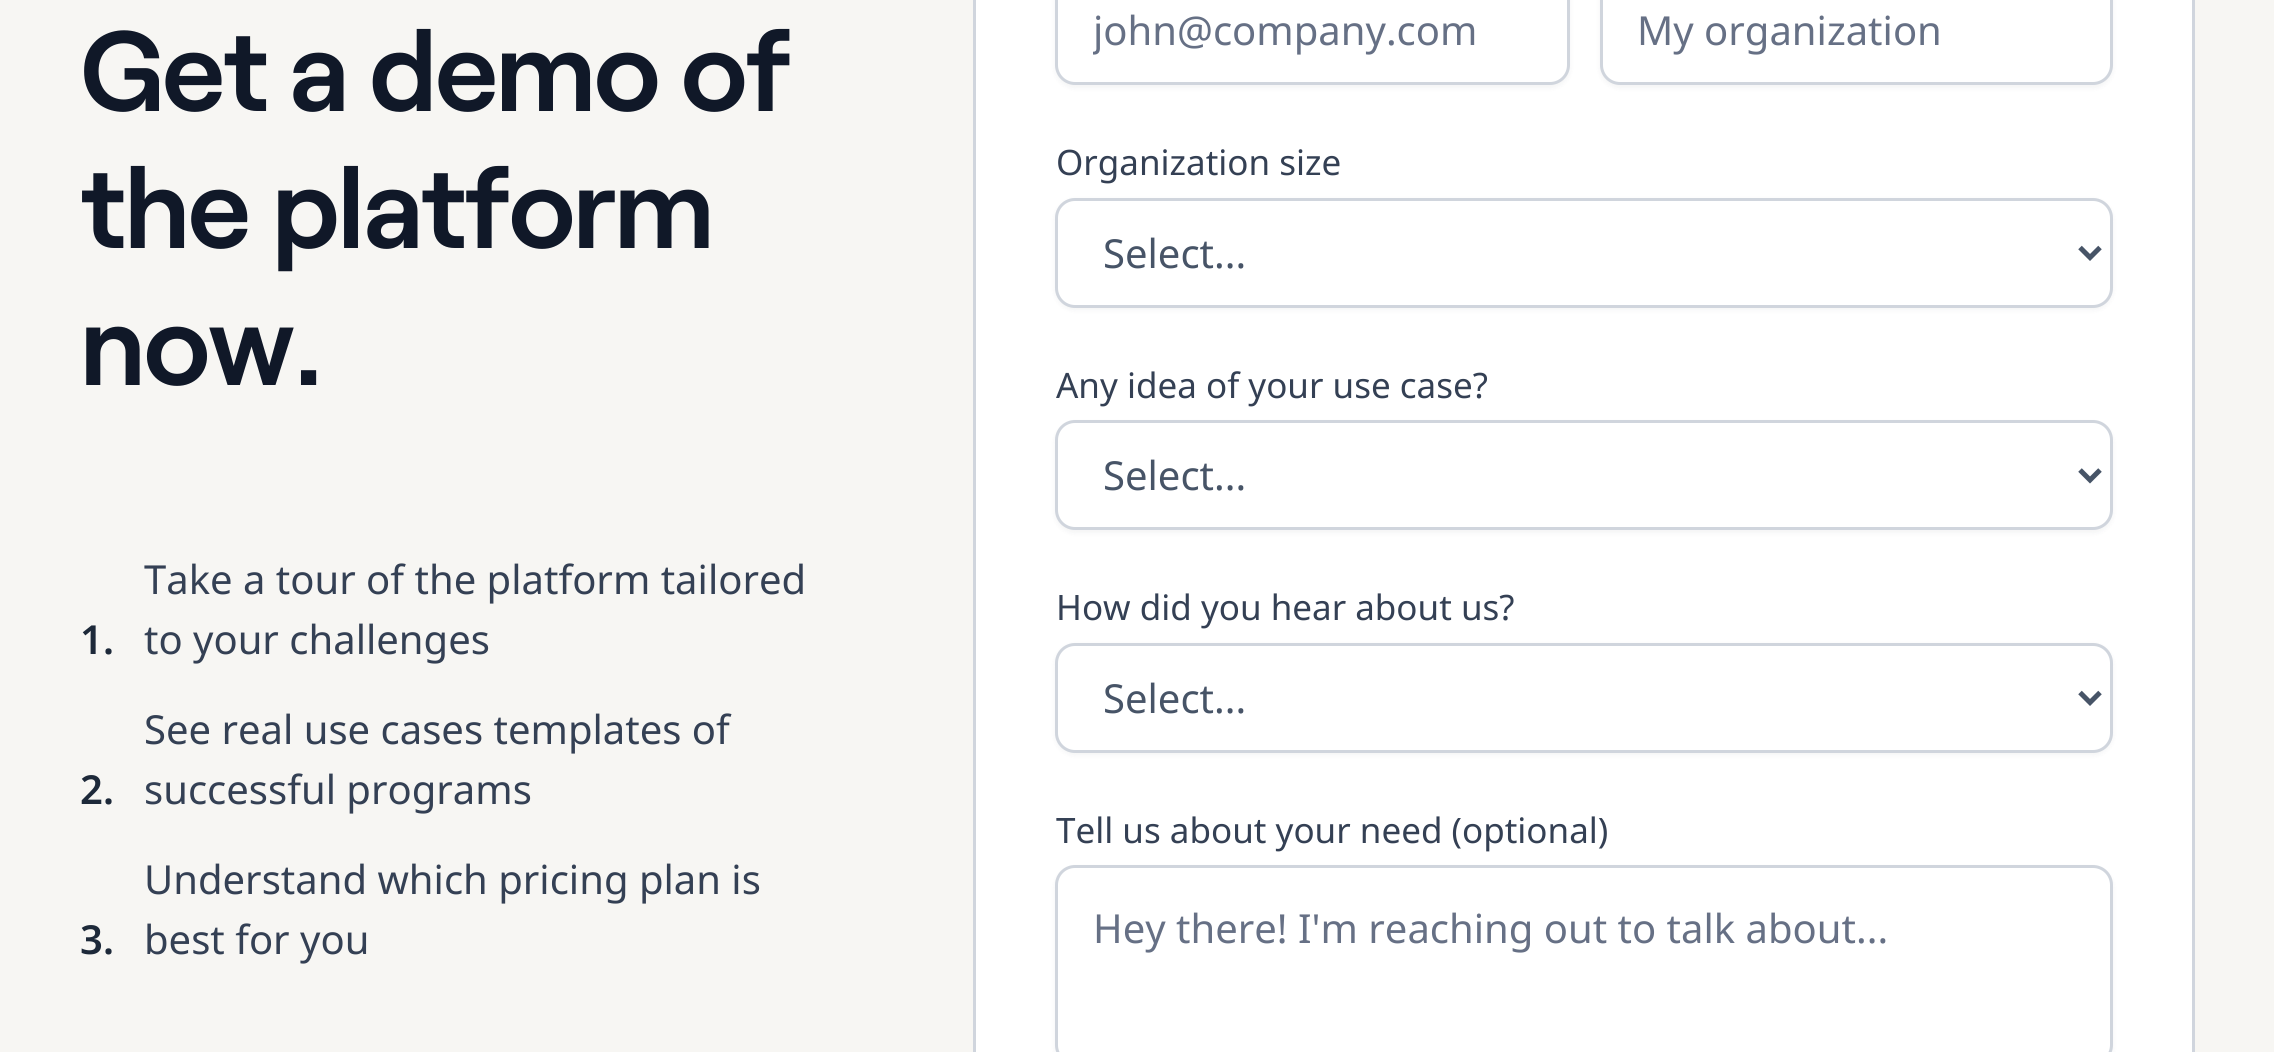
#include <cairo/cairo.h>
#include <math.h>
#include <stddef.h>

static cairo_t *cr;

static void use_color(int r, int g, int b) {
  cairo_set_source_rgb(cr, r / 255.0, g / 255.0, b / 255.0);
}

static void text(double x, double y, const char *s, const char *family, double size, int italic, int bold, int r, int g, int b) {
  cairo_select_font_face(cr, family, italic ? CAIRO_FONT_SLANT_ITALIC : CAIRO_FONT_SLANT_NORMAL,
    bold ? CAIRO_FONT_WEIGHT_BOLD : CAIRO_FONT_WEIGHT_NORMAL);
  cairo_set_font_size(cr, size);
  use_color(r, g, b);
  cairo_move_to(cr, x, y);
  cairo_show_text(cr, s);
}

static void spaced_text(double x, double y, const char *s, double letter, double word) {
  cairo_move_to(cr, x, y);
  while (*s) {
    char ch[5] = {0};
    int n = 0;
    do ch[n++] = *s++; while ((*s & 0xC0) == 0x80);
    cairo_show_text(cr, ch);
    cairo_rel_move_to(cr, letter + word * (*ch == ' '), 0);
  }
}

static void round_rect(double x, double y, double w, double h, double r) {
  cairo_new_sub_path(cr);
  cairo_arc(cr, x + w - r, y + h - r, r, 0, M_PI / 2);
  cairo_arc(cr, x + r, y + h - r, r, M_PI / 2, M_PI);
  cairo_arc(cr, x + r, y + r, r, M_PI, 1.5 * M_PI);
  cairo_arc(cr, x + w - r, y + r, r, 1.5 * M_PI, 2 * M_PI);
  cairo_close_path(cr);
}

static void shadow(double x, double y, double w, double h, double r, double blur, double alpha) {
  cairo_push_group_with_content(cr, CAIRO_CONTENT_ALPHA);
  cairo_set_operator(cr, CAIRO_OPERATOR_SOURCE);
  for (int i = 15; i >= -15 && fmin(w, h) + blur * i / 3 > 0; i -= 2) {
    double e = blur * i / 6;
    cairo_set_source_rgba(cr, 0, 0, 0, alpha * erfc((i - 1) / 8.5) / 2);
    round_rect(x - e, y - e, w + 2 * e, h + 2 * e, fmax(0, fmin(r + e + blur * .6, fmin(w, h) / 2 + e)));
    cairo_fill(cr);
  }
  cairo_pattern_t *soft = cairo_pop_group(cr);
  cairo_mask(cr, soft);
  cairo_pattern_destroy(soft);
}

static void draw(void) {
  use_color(247, 246, 243);
  cairo_paint(cr);
  use_color(255, 255, 255);
  cairo_rectangle(cr, 974.5, -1.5, 1219, 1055);
  cairo_fill_preserve(cr);
  use_color(208, 213, 221);
  cairo_set_line_width(cr, 3);
  cairo_stroke(cr);
  use_color(16, 24, 40);
  shadow(1055, -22, 515, 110, 20, 2.5, 0.05);
  use_color(255, 255, 255);
  round_rect(1056.5, -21.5, 512, 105, 18.5);
  cairo_fill_preserve(cr);
  use_color(208, 213, 221);
  cairo_stroke(cr);
  use_color(16, 24, 40);
  shadow(1600, -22, 513, 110, 20, 2.5, 0.05);
  use_color(255, 255, 255);
  round_rect(1601.5, -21.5, 510, 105, 18.5);
  cairo_fill_preserve(cr);
  use_color(208, 213, 221);
  cairo_stroke(cr);
  use_color(16, 24, 40);
  shadow(1055, 200, 1058, 110, 20, 2.5, 0.05);
  use_color(255, 255, 255);
  round_rect(1056.5, 199.5, 1055, 107, 18.5);
  cairo_fill_preserve(cr);
  use_color(208, 213, 221);
  cairo_stroke(cr);
  cairo_new_path(cr);
  cairo_move_to(cr, 2080, 247.5);
  cairo_line_to(cr, 2090, 257.5);
  cairo_line_to(cr, 2100, 247.5);
  use_color(71, 84, 103);
  cairo_set_line_width(cr, 5);
  cairo_stroke(cr);
  use_color(16, 24, 40);
  shadow(1055, 423, 1058, 110, 20, 2.5, 0.05);
  use_color(255, 255, 255);
  round_rect(1056.5, 421.5, 1055, 107, 18.5);
  cairo_fill_preserve(cr);
  use_color(208, 213, 221);
  cairo_set_line_width(cr, 3);
  cairo_stroke(cr);
  cairo_new_path(cr);
  cairo_move_to(cr, 2080, 470);
  cairo_line_to(cr, 2090, 480);
  cairo_line_to(cr, 2100, 470);
  use_color(71, 84, 103);
  cairo_set_line_width(cr, 5);
  cairo_stroke(cr);
  use_color(16, 24, 40);
  shadow(1055, 645, 1058, 110, 20, 2.5, 0.05);
  use_color(255, 255, 255);
  round_rect(1056.5, 644.5, 1055, 107, 18.5);
  cairo_fill_preserve(cr);
  use_color(208, 213, 221);
  cairo_set_line_width(cr, 3);
  cairo_stroke(cr);
  cairo_new_path(cr);
  cairo_move_to(cr, 2080, 692.5);
  cairo_line_to(cr, 2090, 702.5);
  cairo_line_to(cr, 2100, 692.5);
  use_color(71, 84, 103);
  cairo_set_line_width(cr, 5);
  cairo_stroke(cr);
  use_color(16, 24, 40);
  shadow(1055, 868, 1058, 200, 20, 2.5, 0.05);
  use_color(255, 255, 255);
  round_rect(1056.5, 866.5, 1055, 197, 18.5);
  cairo_fill_preserve(cr);
  use_color(208, 213, 221);
  cairo_set_line_width(cr, 3);
  cairo_stroke(cr);
  cairo_select_font_face(cr, "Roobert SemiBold", CAIRO_FONT_SLANT_NORMAL, CAIRO_FONT_WEIGHT_NORMAL);
  cairo_set_font_size(cr, 114);
  use_color(16, 24, 40);
  spaced_text(80, 111, "Get a demo of", -2.25, 0);
  spaced_text(80, 248, "the platform", -2.25, 0);
  spaced_text(80, 385, "now.", -2.25, 0);
  text(80, 654, "1.", "Noto Sans SemiBold", 40, 0, 0, 29, 41, 57);
  text(144, 594, "Take a tour of the platform tailored", "Noto Sans", 40, 0, 0, 52, 64, 84);
  text(144, 654, "to your challenges", "Noto Sans", 40, 0, 0, 52, 64, 84);
  text(80, 804, "2.", "Noto Sans SemiBold", 40, 0, 0, 29, 41, 57);
  text(144, 744, "See real use cases templates of", "Noto Sans", 40, 0, 0, 52, 64, 84);
  text(144, 804, "successful programs", "Noto Sans", 40, 0, 0, 52, 64, 84);
  text(80, 954, "3.", "Noto Sans SemiBold", 40, 0, 0, 29, 41, 57);
  text(144, 894, "Understand which pricing plan is", "Noto Sans", 40, 0, 0, 52, 64, 84);
  text(144, 954, "best for you", "Noto Sans", 40, 0, 0, 52, 64, 84);
  cairo_save(cr);
  cairo_rectangle(cr, 1093, 3, 440, 55);
  cairo_clip(cr);
  text(1093, 45, "john@company.com", "Noto Sans", 40, 0, 0, 102, 112, 133);
  cairo_restore(cr);
  text(1637, 45, "My organization", "Noto Sans", 40, 0, 0, 102, 112, 133);
  text(1056, 175, "Organization size", "Noto Sans", 35, 0, 0, 52, 64, 84);
  text(1103, 268, "Select...", "Noto Sans", 40, 0, 0, 71, 84, 103);
  text(1056, 398, "Any idea of your use case?", "Noto Sans", 35, 0, 0, 52, 64, 84);
  text(1103, 490, "Select...", "Noto Sans", 40, 0, 0, 71, 84, 103);
  text(1056, 620, "How did you hear about us?", "Noto Sans", 35, 0, 0, 52, 64, 84);
  text(1103, 713, "Select...", "Noto Sans", 40, 0, 0, 71, 84, 103);
  text(1056, 843, "Tell us about your need (optional)", "Noto Sans", 35, 0, 0, 52, 64, 84);
  text(1093, 943, "Hey there! I'm reaching out to talk about...", "Noto Sans", 40, 0, 0, 102, 112, 133);
}

int main(void) {
  cairo_surface_t *surface = cairo_image_surface_create(CAIRO_FORMAT_RGB24, 2274, 1052);
  cr = cairo_create(surface);
  cairo_font_options_t *options = cairo_font_options_create();
  cairo_font_options_set_hint_metrics(options, CAIRO_HINT_METRICS_OFF);
  cairo_font_options_set_hint_style(options, CAIRO_HINT_STYLE_NONE);
  cairo_set_font_options(cr, options);
  cairo_set_miter_limit(cr, 4);
  draw();
  cairo_surface_write_to_png(surface, "out.png");
  cairo_font_options_destroy(options);
  cairo_destroy(cr);
  cairo_surface_destroy(surface);
  return 0;
}
